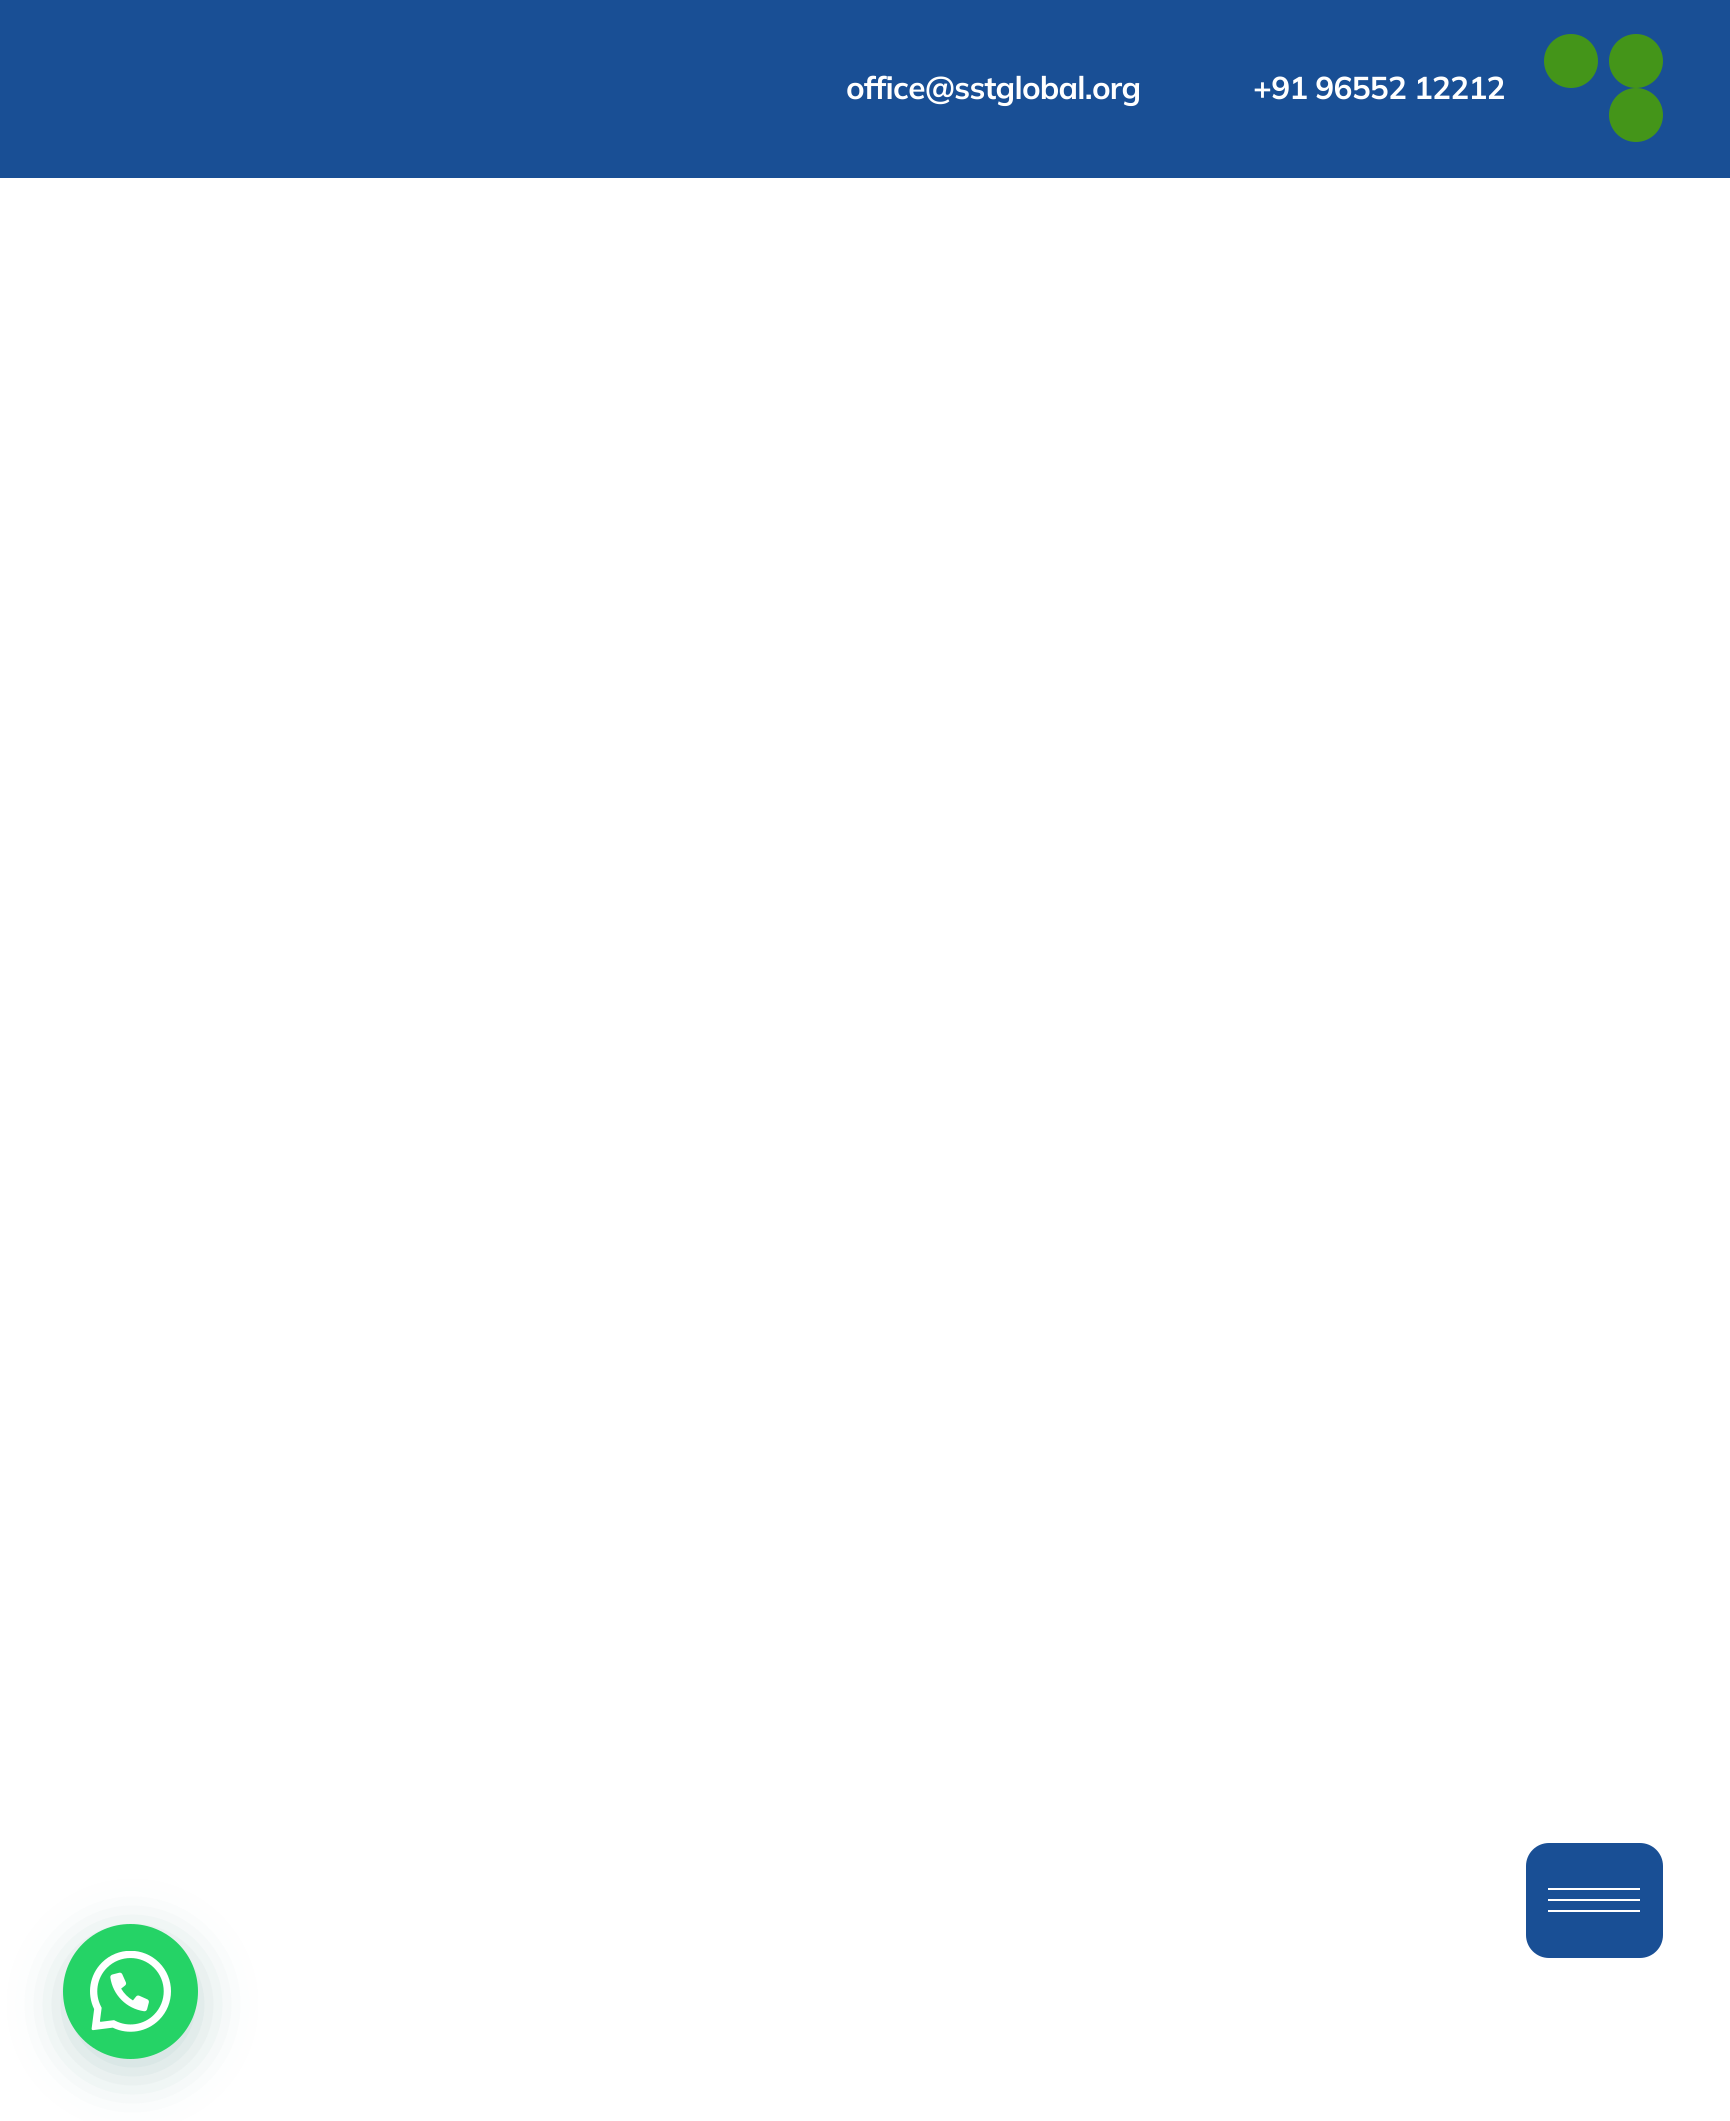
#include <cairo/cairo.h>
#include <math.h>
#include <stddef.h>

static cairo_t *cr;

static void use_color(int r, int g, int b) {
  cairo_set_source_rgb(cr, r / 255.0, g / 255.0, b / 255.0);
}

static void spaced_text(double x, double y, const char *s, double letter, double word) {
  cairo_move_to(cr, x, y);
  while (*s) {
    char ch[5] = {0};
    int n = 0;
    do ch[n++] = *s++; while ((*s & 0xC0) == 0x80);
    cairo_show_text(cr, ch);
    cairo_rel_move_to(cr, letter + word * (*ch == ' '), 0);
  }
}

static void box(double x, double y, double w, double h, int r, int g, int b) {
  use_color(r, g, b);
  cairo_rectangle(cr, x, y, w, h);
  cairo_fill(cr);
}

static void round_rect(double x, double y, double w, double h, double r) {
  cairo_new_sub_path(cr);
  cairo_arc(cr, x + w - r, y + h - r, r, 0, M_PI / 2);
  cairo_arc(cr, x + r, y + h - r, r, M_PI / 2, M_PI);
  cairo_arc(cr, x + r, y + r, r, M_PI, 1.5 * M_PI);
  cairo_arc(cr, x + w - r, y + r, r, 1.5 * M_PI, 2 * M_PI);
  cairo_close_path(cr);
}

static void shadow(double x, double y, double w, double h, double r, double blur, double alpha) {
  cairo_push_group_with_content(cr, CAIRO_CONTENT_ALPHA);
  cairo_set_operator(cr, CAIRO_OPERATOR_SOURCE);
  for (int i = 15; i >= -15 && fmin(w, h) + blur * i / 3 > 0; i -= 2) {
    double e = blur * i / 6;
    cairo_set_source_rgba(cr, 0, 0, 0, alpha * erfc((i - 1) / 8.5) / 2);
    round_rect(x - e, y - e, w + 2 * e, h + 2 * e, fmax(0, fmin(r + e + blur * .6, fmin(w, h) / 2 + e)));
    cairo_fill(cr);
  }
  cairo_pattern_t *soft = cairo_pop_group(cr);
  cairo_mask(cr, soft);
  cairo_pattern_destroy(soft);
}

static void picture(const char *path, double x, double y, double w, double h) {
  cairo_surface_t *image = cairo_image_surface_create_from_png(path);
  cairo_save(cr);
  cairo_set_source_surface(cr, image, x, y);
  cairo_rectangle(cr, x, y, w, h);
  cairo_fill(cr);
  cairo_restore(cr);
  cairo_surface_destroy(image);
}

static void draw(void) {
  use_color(255, 255, 255);
  cairo_paint(cr);
  box(0, 0, 1730, 178, 25, 79, 149);
  use_color(68, 149, 25);
  cairo_arc(cr, 1571, 61, 27, 0, 2 * M_PI);
  cairo_fill(cr);
  cairo_arc(cr, 1636, 61, 27, 0, 2 * M_PI);
  cairo_fill(cr);
  cairo_arc(cr, 1636, 115, 27, 0, 2 * M_PI);
  cairo_fill(cr);
  use_color(25, 79, 149);
  round_rect(1526, 1843, 137, 115, 23);
  cairo_fill(cr);
  box(1548, 1888, 92, 2, 255, 255, 255);
  box(1548, 1899, 92, 2, 255, 255, 255);
  box(1548, 1910, 92, 2, 255, 255, 255);
  use_color(7, 94, 84);
  shadow(65, 1937, 135, 135, 67.5, 27, 0.24);
  use_color(37, 211, 102);
  cairo_arc(cr, 130.5, 1991.5, 67.5, 0, 2 * M_PI);
  cairo_fill(cr);
  picture("img_01.png", 90, 1951, 81, 81);
  cairo_select_font_face(cr, "Mulish", CAIRO_FONT_SLANT_NORMAL, CAIRO_FONT_WEIGHT_BOLD);
  cairo_set_font_size(cr, 31.5);
  use_color(255, 255, 255);
  spaced_text(846, 99, "office@sstglobal.org", -0.75, 0);
  spaced_text(1253, 99, "+91 96552 12212", -0.75, 0);
}

int main(void) {
  cairo_surface_t *surface = cairo_image_surface_create(CAIRO_FORMAT_RGB24, 1730, 2121);
  cr = cairo_create(surface);
  cairo_font_options_t *options = cairo_font_options_create();
  cairo_font_options_set_hint_metrics(options, CAIRO_HINT_METRICS_OFF);
  cairo_font_options_set_hint_style(options, CAIRO_HINT_STYLE_NONE);
  cairo_set_font_options(cr, options);
  cairo_set_miter_limit(cr, 4);
  draw();
  cairo_surface_write_to_png(surface, "out.png");
  cairo_font_options_destroy(options);
  cairo_destroy(cr);
  cairo_surface_destroy(surface);
  return 0;
}
